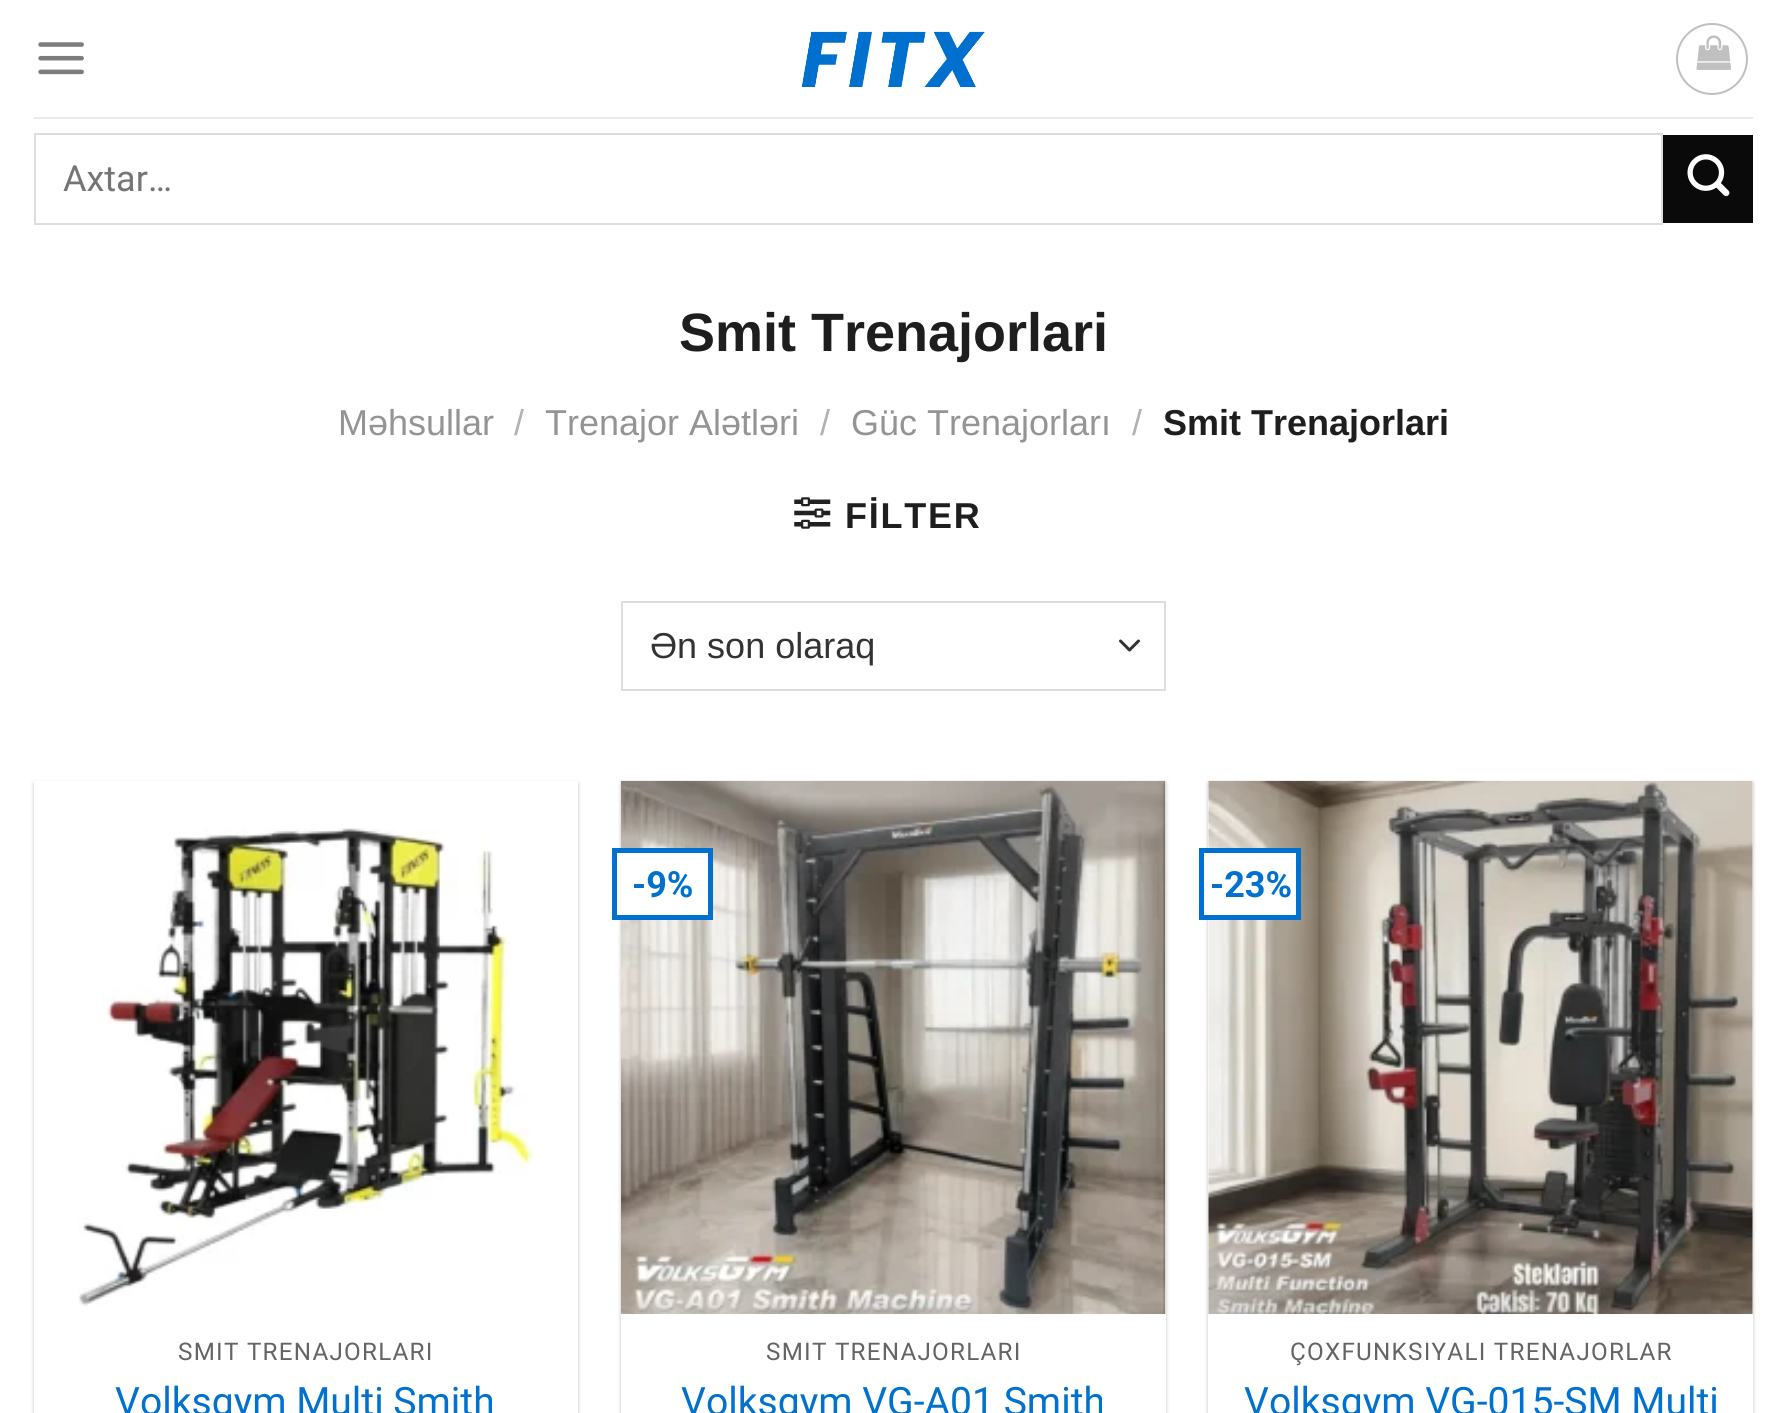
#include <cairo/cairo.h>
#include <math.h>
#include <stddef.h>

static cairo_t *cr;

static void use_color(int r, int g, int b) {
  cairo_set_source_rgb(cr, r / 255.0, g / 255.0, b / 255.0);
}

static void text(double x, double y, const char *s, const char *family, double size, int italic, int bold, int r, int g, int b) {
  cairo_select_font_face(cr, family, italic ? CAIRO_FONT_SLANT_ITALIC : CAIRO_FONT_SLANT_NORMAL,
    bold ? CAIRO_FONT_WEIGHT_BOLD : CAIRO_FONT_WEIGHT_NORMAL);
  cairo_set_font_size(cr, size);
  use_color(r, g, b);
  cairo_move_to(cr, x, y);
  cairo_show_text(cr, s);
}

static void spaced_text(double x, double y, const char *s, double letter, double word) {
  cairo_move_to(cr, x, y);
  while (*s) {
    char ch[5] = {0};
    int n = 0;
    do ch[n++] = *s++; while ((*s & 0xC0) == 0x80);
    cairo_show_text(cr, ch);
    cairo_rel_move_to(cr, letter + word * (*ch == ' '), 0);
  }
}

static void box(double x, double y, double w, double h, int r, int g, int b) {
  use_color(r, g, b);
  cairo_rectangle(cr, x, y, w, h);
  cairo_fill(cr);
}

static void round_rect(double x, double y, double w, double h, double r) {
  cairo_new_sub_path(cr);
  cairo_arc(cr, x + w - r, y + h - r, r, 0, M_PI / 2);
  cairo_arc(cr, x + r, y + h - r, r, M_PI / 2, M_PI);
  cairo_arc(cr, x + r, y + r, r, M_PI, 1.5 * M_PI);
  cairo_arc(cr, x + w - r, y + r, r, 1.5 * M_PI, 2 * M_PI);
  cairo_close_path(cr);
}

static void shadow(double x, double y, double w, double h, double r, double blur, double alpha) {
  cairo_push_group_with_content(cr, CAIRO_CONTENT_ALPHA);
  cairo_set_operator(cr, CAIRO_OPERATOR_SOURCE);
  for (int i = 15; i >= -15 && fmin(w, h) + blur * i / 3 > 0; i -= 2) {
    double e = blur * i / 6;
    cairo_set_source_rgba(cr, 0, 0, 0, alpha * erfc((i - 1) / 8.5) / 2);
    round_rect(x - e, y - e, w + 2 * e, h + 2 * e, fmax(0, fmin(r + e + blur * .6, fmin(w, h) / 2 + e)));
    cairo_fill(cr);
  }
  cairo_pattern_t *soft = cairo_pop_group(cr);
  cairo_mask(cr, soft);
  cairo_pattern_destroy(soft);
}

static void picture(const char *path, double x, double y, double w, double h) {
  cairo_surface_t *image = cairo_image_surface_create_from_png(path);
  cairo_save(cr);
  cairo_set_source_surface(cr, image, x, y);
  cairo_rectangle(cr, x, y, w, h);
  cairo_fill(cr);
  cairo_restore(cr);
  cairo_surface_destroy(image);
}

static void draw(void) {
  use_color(255, 255, 255);
  cairo_paint(cr);
  picture("img_01.png", 38, 42, 46, 33);
  picture("img_02.png", 801, 31, 184, 56);
  cairo_arc(cr, 1712, 59, 35, 0, 2 * M_PI);
  use_color(192, 192, 192);
  cairo_stroke(cr);
  picture("img_03.png", 1696, 35, 35, 35);
  box(34, 117, 1719, 2, 233, 233, 233);
  cairo_rectangle(cr, 35, 134, 1627, 90);
  use_color(221, 221, 221);
  cairo_stroke(cr);
  box(1663, 135, 90, 88, 10, 10, 10);
  picture("img_04.png", 1687, 154, 43, 43);
  picture("img_05.png", 794, 497, 37, 32);
  cairo_new_path(cr);
  cairo_move_to(cr, 1120.5, 641);
  cairo_line_to(cr, 1129.5, 650);
  cairo_line_to(cr, 1138.5, 641);
  use_color(51, 51, 51);
  cairo_set_line_width(cr, 3);
  cairo_set_line_cap(cr, CAIRO_LINE_CAP_ROUND);
  cairo_set_line_join(cr, CAIRO_LINE_JOIN_ROUND);
  cairo_stroke(cr);
  cairo_rectangle(cr, 622, 602, 543, 88);
  use_color(221, 221, 221);
  cairo_set_line_width(cr, 2);
  cairo_set_line_cap(cr, CAIRO_LINE_CAP_BUTT);
  cairo_set_line_join(cr, CAIRO_LINE_JOIN_MITER);
  cairo_stroke(cr);
  cairo_save(cr);
  cairo_set_fill_rule(cr, CAIRO_FILL_RULE_EVEN_ODD);
  cairo_new_path(cr);
  cairo_move_to(cr, 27, 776);
  cairo_line_to(cr, 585, 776);
  cairo_line_to(cr, 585, 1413);
  cairo_line_to(cr, 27, 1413);
  cairo_close_path(cr);
  cairo_move_to(cr, 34, 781);
  cairo_line_to(cr, 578, 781);
  cairo_line_to(cr, 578, 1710);
  cairo_line_to(cr, 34, 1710);
  cairo_close_path(cr);
  cairo_clip(cr);
  use_color(0, 0, 0);
  shadow(34, 783, 544, 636, 0, 2, 0.24);
  cairo_restore(cr);
  picture("img_06.png", 78, 828, 457, 478);
  use_color(0, 0, 0);
  shadow(621, 783, 545, 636, 0, 2, 0.24);
  box(621, 781, 545, 632, 255, 255, 255);
  picture("img_07.png", 621, 780, 545, 534);
  box(618, 853, 90, 62, 255, 255, 255);
  cairo_rectangle(cr, 614.5, 850.5, 96, 67);
  use_color(0, 113, 206);
  cairo_set_line_width(cr, 5);
  cairo_stroke(cr);
  use_color(0, 0, 0);
  shadow(1208, 783, 545, 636, 0, 2, 0.24);
  box(1208, 781, 545, 632, 255, 255, 255);
  picture("img_08.png", 1208, 780, 545, 534);
  box(1205, 853, 91, 62, 255, 255, 255);
  cairo_rectangle(cr, 1201.5, 850.5, 97, 67);
  use_color(0, 113, 206);
  cairo_stroke(cr);
  text(63, 191, "Axtar…", "Roboto", 36, 0, 0, 117, 117, 117);
  text(679, 351, "Smit Trenajorlari", "Liberation Sans", 54, 0, 1, 30, 30, 30);
  text(338, 435, "Məhsullar", "Liberation Sans", 36, 0, 0, 148, 148, 148);
  text(514, 435, "/", "Liberation Sans", 36, 0, 0, 178, 178, 178);
  text(545, 435, "Trenajor Alətləri", "Liberation Sans", 36, 0, 0, 148, 148, 148);
  text(820, 435, "/", "Liberation Sans", 36, 0, 0, 178, 178, 178);
  text(851, 435, "Güc Trenajorları", "Liberation Sans", 36, 0, 0, 148, 148, 148);
  text(1132, 435, "/", "Liberation Sans", 36, 0, 0, 178, 178, 178);
  text(1163, 435, "Smit Trenajorlari", "Liberation Sans", 36, 0, 1, 30, 30, 30);
  spaced_text(845, 528, "FİLTER", 1.75, 0);
  text(650, 658, "Ən son olaraq", "Liberation Sans", 36, 0, 0, 51, 51, 51);
  cairo_save(cr);
  cairo_rectangle(cr, 56, 1341, 500, 27);
  cairo_clip(cr);
  cairo_select_font_face(cr, "Roboto", CAIRO_FONT_SLANT_NORMAL, CAIRO_FONT_WEIGHT_NORMAL);
  cairo_set_font_size(cr, 24.25);
  use_color(100, 100, 100);
  spaced_text(178, 1360, "SMİT TRENAJORLARİ", 1.25, 0);
  cairo_restore(cr);
  text(115, 1415, "Volksgym Multi Smith", "Roboto", 39.1, 0, 0, 0, 113, 206);
  text(632, 897, "-9%", "Roboto", 36, 0, 1, 0, 113, 206);
  cairo_save(cr);
  cairo_rectangle(cr, 644, 1341, 499, 27);
  cairo_clip(cr);
  cairo_select_font_face(cr, "Roboto", CAIRO_FONT_SLANT_NORMAL, CAIRO_FONT_WEIGHT_NORMAL);
  cairo_set_font_size(cr, 24.25);
  use_color(100, 100, 100);
  spaced_text(766, 1360, "SMİT TRENAJORLARİ", 1.25, 0);
  cairo_restore(cr);
  text(681, 1415, "Volksgym VG-A01 Smith", "Roboto", 39.1, 0, 0, 0, 113, 206);
  text(1210, 897, "-23%", "Roboto", 36, 0, 1, 0, 113, 206);
  cairo_save(cr);
  cairo_rectangle(cr, 1231, 1341, 499, 27);
  cairo_clip(cr);
  cairo_select_font_face(cr, "Roboto", CAIRO_FONT_SLANT_NORMAL, CAIRO_FONT_WEIGHT_NORMAL);
  cairo_set_font_size(cr, 24.25);
  use_color(100, 100, 100);
  spaced_text(1290, 1360, "ÇOXFUNKSİYALI TRENAJORLAR", 1.25, 0);
  cairo_restore(cr);
  text(1244, 1415, "Volksgym VG-015-SM Multi", "Roboto", 39.1, 0, 0, 0, 113, 206);
}

int main(void) {
  cairo_surface_t *surface = cairo_image_surface_create(CAIRO_FORMAT_RGB24, 1785, 1413);
  cr = cairo_create(surface);
  cairo_font_options_t *options = cairo_font_options_create();
  cairo_font_options_set_hint_metrics(options, CAIRO_HINT_METRICS_OFF);
  cairo_font_options_set_hint_style(options, CAIRO_HINT_STYLE_NONE);
  cairo_set_font_options(cr, options);
  cairo_set_miter_limit(cr, 4);
  draw();
  cairo_surface_write_to_png(surface, "out.png");
  cairo_font_options_destroy(options);
  cairo_destroy(cr);
  cairo_surface_destroy(surface);
  return 0;
}
